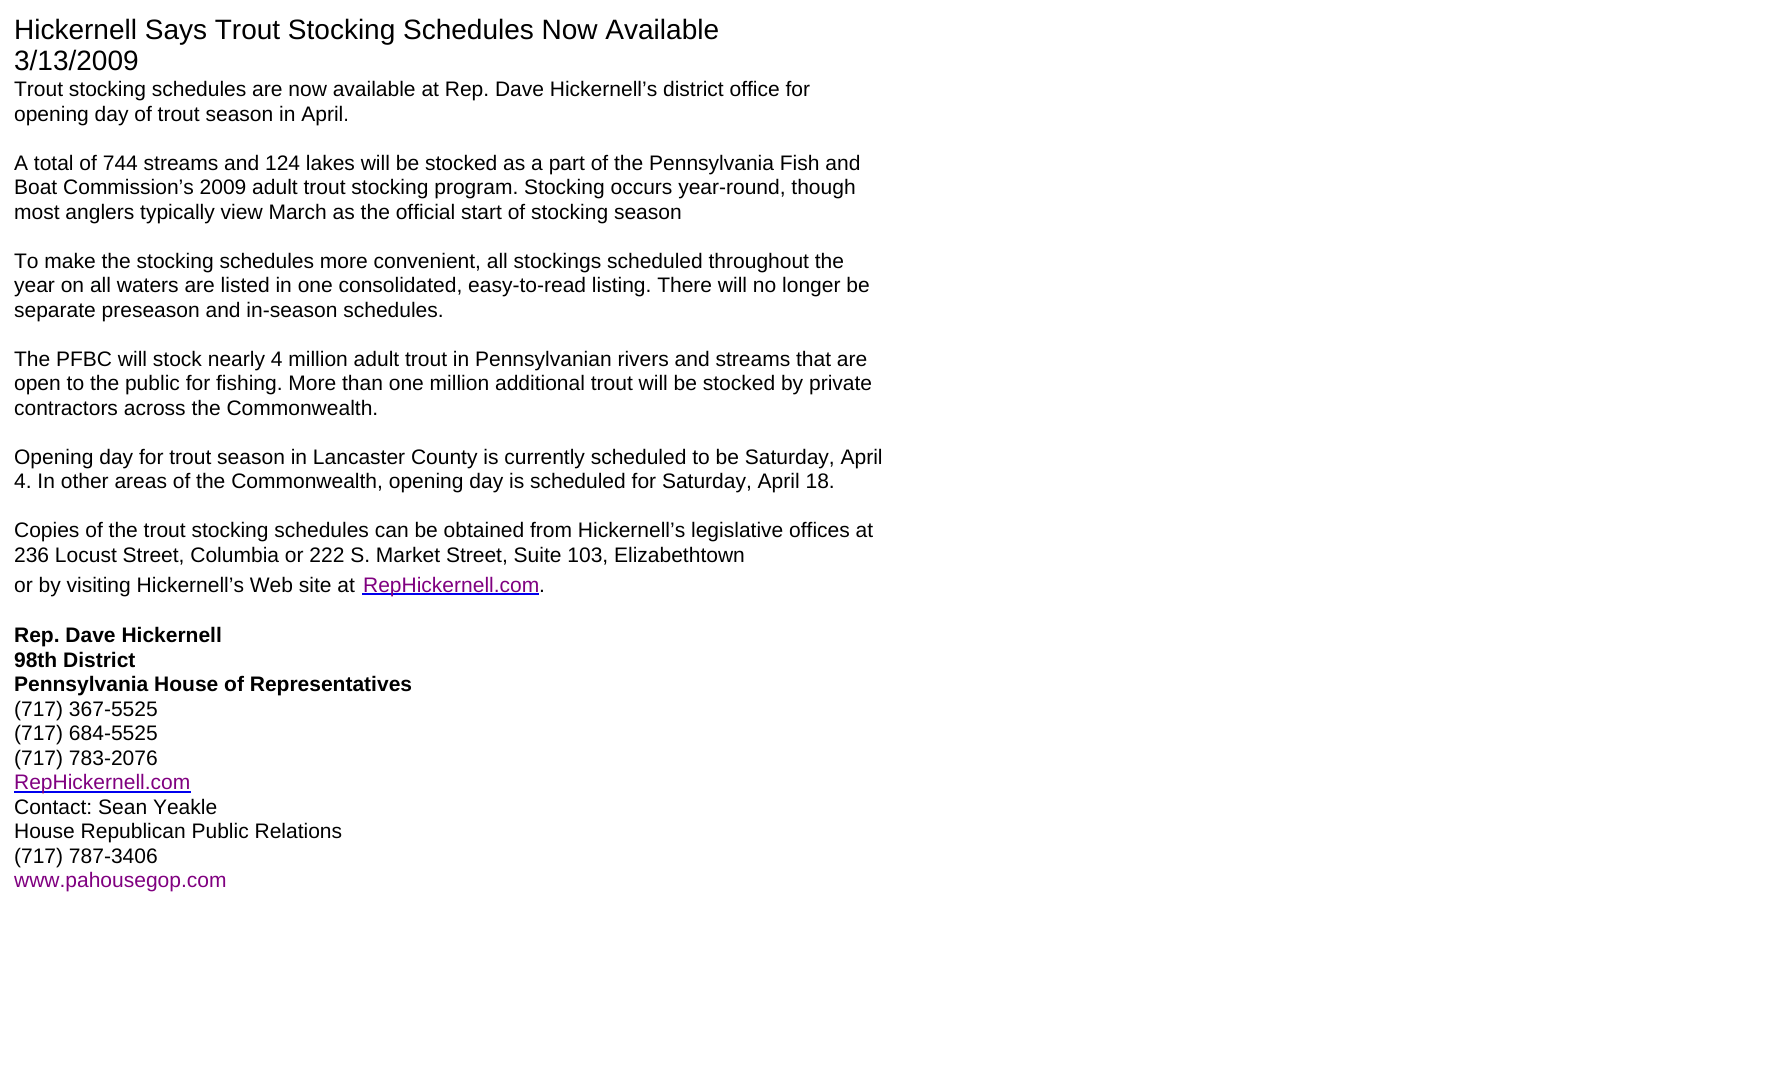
#include <cairo/cairo.h>
#include <math.h>
#include <stddef.h>

static cairo_t *cr;

static void use_color(int r, int g, int b) {
  cairo_set_source_rgb(cr, r / 255.0, g / 255.0, b / 255.0);
}

static void text(double x, double y, const char *s, const char *family, double size, int italic, int bold, int r, int g, int b) {
  cairo_select_font_face(cr, family, italic ? CAIRO_FONT_SLANT_ITALIC : CAIRO_FONT_SLANT_NORMAL,
    bold ? CAIRO_FONT_WEIGHT_BOLD : CAIRO_FONT_WEIGHT_NORMAL);
  cairo_set_font_size(cr, size);
  use_color(r, g, b);
  cairo_move_to(cr, x, y);
  cairo_show_text(cr, s);
}

static void box(double x, double y, double w, double h, int r, int g, int b) {
  use_color(r, g, b);
  cairo_rectangle(cr, x, y, w, h);
  cairo_fill(cr);
}

static void draw(void) {
  use_color(255, 255, 255);
  cairo_paint(cr);
  box(362, 593, 177, 2, 0, 0, 238);
  box(14, 791, 177, 2, 0, 0, 238);
  text(14, 39, "Hickernell Says Trout Stocking Schedules Now Available", "Liberation Sans", 28, 0, 0, 0, 0, 0);
  text(14, 70, "3/13/2009", "Liberation Sans", 28, 0, 0, 0, 0, 0);
  text(14, 96, "Trout stocking schedules are now available at Rep. Dave Hickernell’s district office for", "Liberation Sans", 21, 0, 0, 0, 0, 0);
  text(14, 121, "opening day of trout season in April.", "Liberation Sans", 21, 0, 0, 0, 0, 0);
  text(14, 170, "A total of 744 streams and 124 lakes will be stocked as a part of the Pennsylvania Fish and", "Liberation Sans", 21, 0, 0, 0, 0, 0);
  text(14, 194, "Boat Commission’s 2009 adult trout stocking program. Stocking occurs year-round, though", "Liberation Sans", 21, 0, 0, 0, 0, 0);
  text(14, 219, "most anglers typically view March as the official start of stocking season", "Liberation Sans", 21, 0, 0, 0, 0, 0);
  text(14, 268, "To make the stocking schedules more convenient, all stockings scheduled throughout the", "Liberation Sans", 21, 0, 0, 0, 0, 0);
  text(14, 292, "year on all waters are listed in one consolidated, easy-to-read listing. There will no longer be", "Liberation Sans", 21, 0, 0, 0, 0, 0);
  text(14, 317, "separate preseason and in-season schedules.", "Liberation Sans", 21, 0, 0, 0, 0, 0);
  text(14, 366, "The PFBC will stock nearly 4 million adult trout in Pennsylvanian rivers and streams that are", "Liberation Sans", 21, 0, 0, 0, 0, 0);
  text(14, 390, "open to the public for fishing. More than one million additional trout will be stocked by private", "Liberation Sans", 21, 0, 0, 0, 0, 0);
  text(14, 415, "contractors across the Commonwealth.", "Liberation Sans", 21, 0, 0, 0, 0, 0);
  text(14, 464, "Opening day for trout season in Lancaster County is currently scheduled to be Saturday, April", "Liberation Sans", 21, 0, 0, 0, 0, 0);
  text(14, 488, "4. In other areas of the Commonwealth, opening day is scheduled for Saturday, April 18.", "Liberation Sans", 21, 0, 0, 0, 0, 0);
  text(14, 537, "Copies of the trout stocking schedules can be obtained from Hickernell’s legislative offices at", "Liberation Sans", 21, 0, 0, 0, 0, 0);
  text(14, 562, "236 Locust Street, Columbia or 222 S. Market Street, Suite 103, Elizabethtown", "Liberation Sans", 21, 0, 0, 0, 0, 0);
  text(14, 592, "or by visiting Hickernell’s Web site at", "Liberation Sans", 21, 0, 0, 0, 0, 0);
  text(363, 592, "RepHickernell.com", "Liberation Sans", 21, 0, 0, 128, 0, 128);
  text(539, 592, ".", "Liberation Sans", 21, 0, 0, 0, 0, 0);
  text(14, 642, "Rep. Dave Hickernell", "Liberation Sans", 21, 0, 1, 0, 0, 0);
  text(14, 667, "98th District", "Liberation Sans", 21, 0, 1, 0, 0, 0);
  text(14, 691, "Pennsylvania House of Representatives", "Liberation Sans", 21, 0, 1, 0, 0, 0);
  text(14, 716, "(717) 367-5525", "Liberation Sans", 21, 0, 0, 0, 0, 0);
  text(14, 740, "(717) 684-5525", "Liberation Sans", 21, 0, 0, 0, 0, 0);
  text(14, 765, "(717) 783-2076", "Liberation Sans", 21, 0, 0, 0, 0, 0);
  text(14, 789, "RepHickernell.com", "Liberation Sans", 21, 0, 0, 128, 0, 128);
  text(14, 814, "Contact: Sean Yeakle", "Liberation Sans", 21, 0, 0, 0, 0, 0);
  text(14, 838, "House Republican Public Relations", "Liberation Sans", 21, 0, 0, 0, 0, 0);
  text(14, 863, "(717) 787-3406", "Liberation Sans", 21, 0, 0, 0, 0, 0);
  text(14, 887, "www.pahousegop.com", "Liberation Sans", 21, 0, 0, 128, 0, 128);
}

int main(void) {
  cairo_surface_t *surface = cairo_image_surface_create(CAIRO_FORMAT_RGB24, 1778, 1084);
  cr = cairo_create(surface);
  cairo_font_options_t *options = cairo_font_options_create();
  cairo_font_options_set_hint_metrics(options, CAIRO_HINT_METRICS_OFF);
  cairo_font_options_set_hint_style(options, CAIRO_HINT_STYLE_NONE);
  cairo_set_font_options(cr, options);
  cairo_set_miter_limit(cr, 4);
  draw();
  cairo_surface_write_to_png(surface, "out.png");
  cairo_font_options_destroy(options);
  cairo_destroy(cr);
  cairo_surface_destroy(surface);
  return 0;
}
